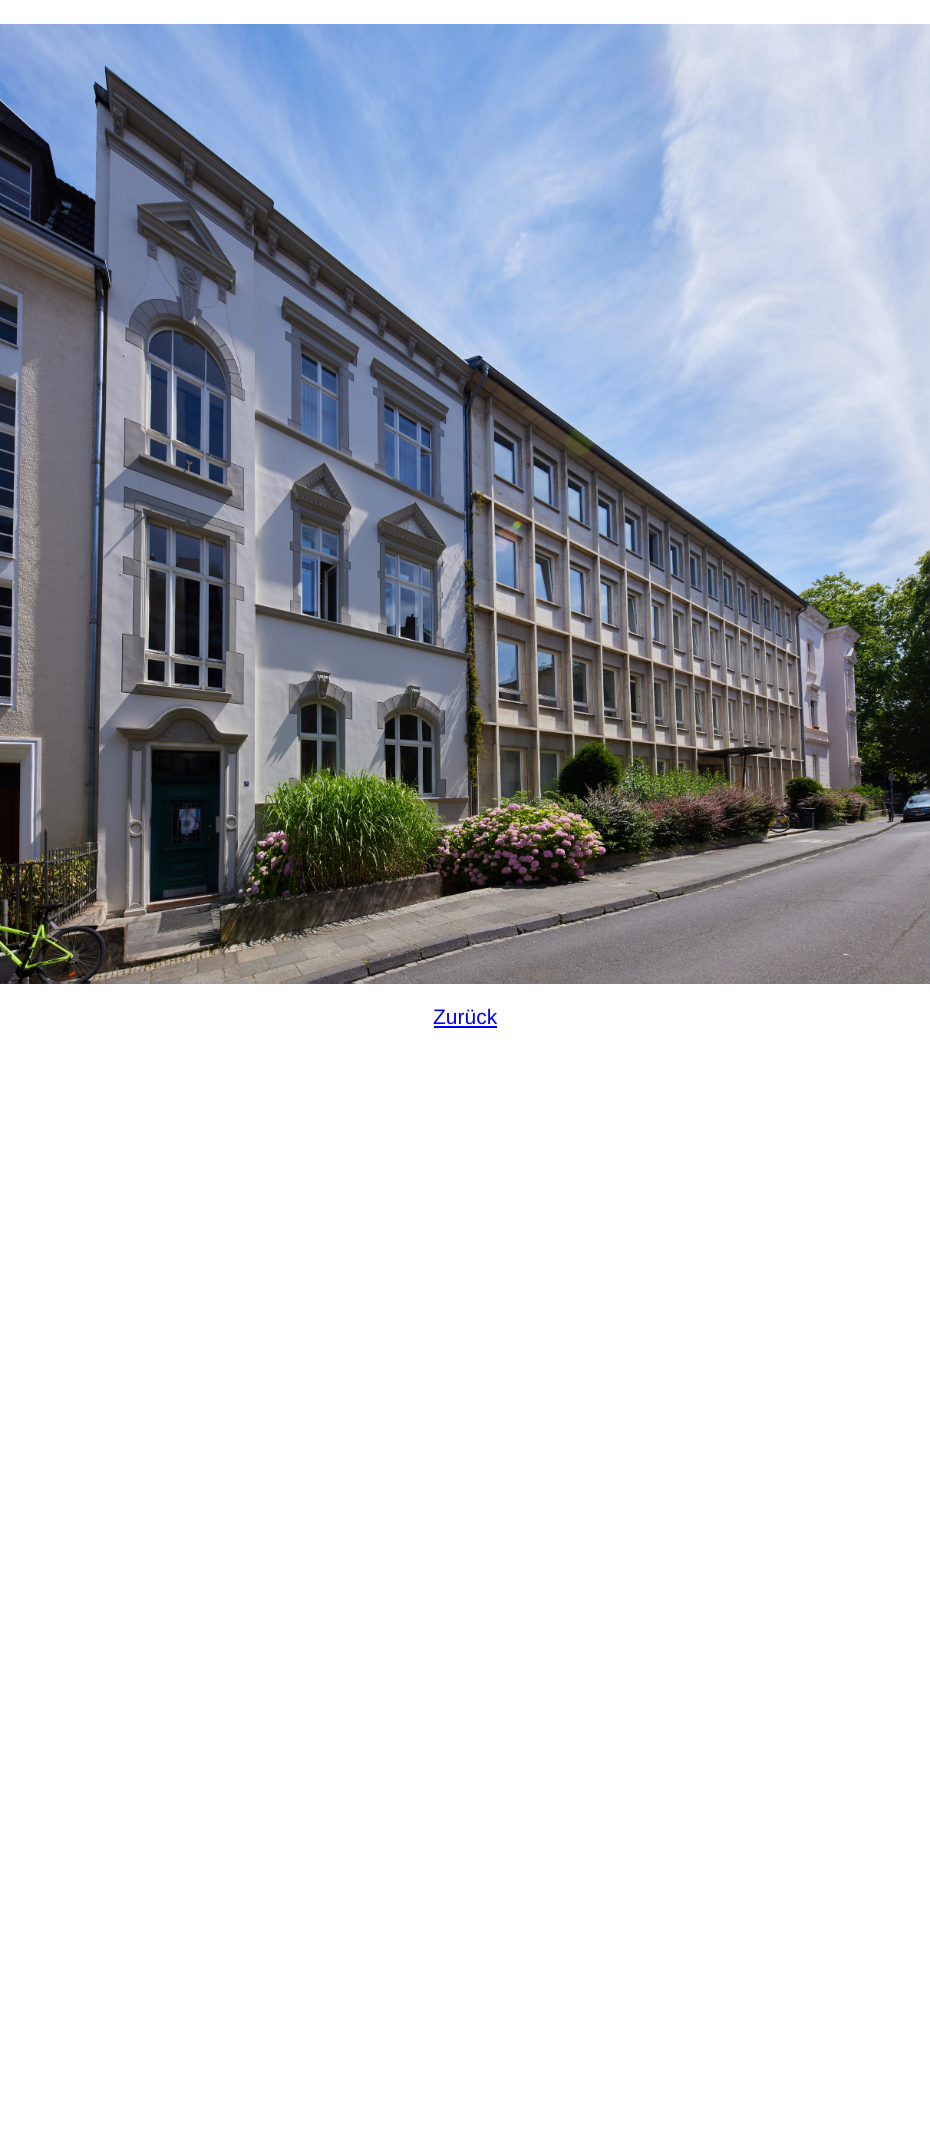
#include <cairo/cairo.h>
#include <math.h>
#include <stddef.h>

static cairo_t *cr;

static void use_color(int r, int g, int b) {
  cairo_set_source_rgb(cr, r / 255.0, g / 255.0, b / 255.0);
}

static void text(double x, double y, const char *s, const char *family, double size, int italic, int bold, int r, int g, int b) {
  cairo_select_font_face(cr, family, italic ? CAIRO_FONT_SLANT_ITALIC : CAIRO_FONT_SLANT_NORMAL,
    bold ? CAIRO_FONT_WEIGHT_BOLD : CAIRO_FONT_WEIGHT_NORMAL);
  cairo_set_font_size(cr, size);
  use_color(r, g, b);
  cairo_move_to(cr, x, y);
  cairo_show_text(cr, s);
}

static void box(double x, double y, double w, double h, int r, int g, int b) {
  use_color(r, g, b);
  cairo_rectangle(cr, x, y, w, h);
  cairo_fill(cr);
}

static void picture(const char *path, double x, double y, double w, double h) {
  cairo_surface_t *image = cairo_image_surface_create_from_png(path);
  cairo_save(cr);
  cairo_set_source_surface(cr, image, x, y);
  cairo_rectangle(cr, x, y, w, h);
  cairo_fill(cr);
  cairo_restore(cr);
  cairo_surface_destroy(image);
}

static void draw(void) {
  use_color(255, 255, 255);
  cairo_paint(cr);
  picture("img_01.png", 0, 24, 930, 960);
  box(434, 1026, 63, 2, 0, 0, 238);
  text(433, 1024, "Zurück", "Liberation Sans", 21, 0, 0, 0, 0, 238);
}

int main(void) {
  cairo_surface_t *surface = cairo_image_surface_create(CAIRO_FORMAT_RGB24, 930, 2145);
  cr = cairo_create(surface);
  cairo_font_options_t *options = cairo_font_options_create();
  cairo_font_options_set_hint_metrics(options, CAIRO_HINT_METRICS_OFF);
  cairo_font_options_set_hint_style(options, CAIRO_HINT_STYLE_NONE);
  cairo_set_font_options(cr, options);
  cairo_set_miter_limit(cr, 4);
  draw();
  cairo_surface_write_to_png(surface, "out.png");
  cairo_font_options_destroy(options);
  cairo_destroy(cr);
  cairo_surface_destroy(surface);
  return 0;
}
